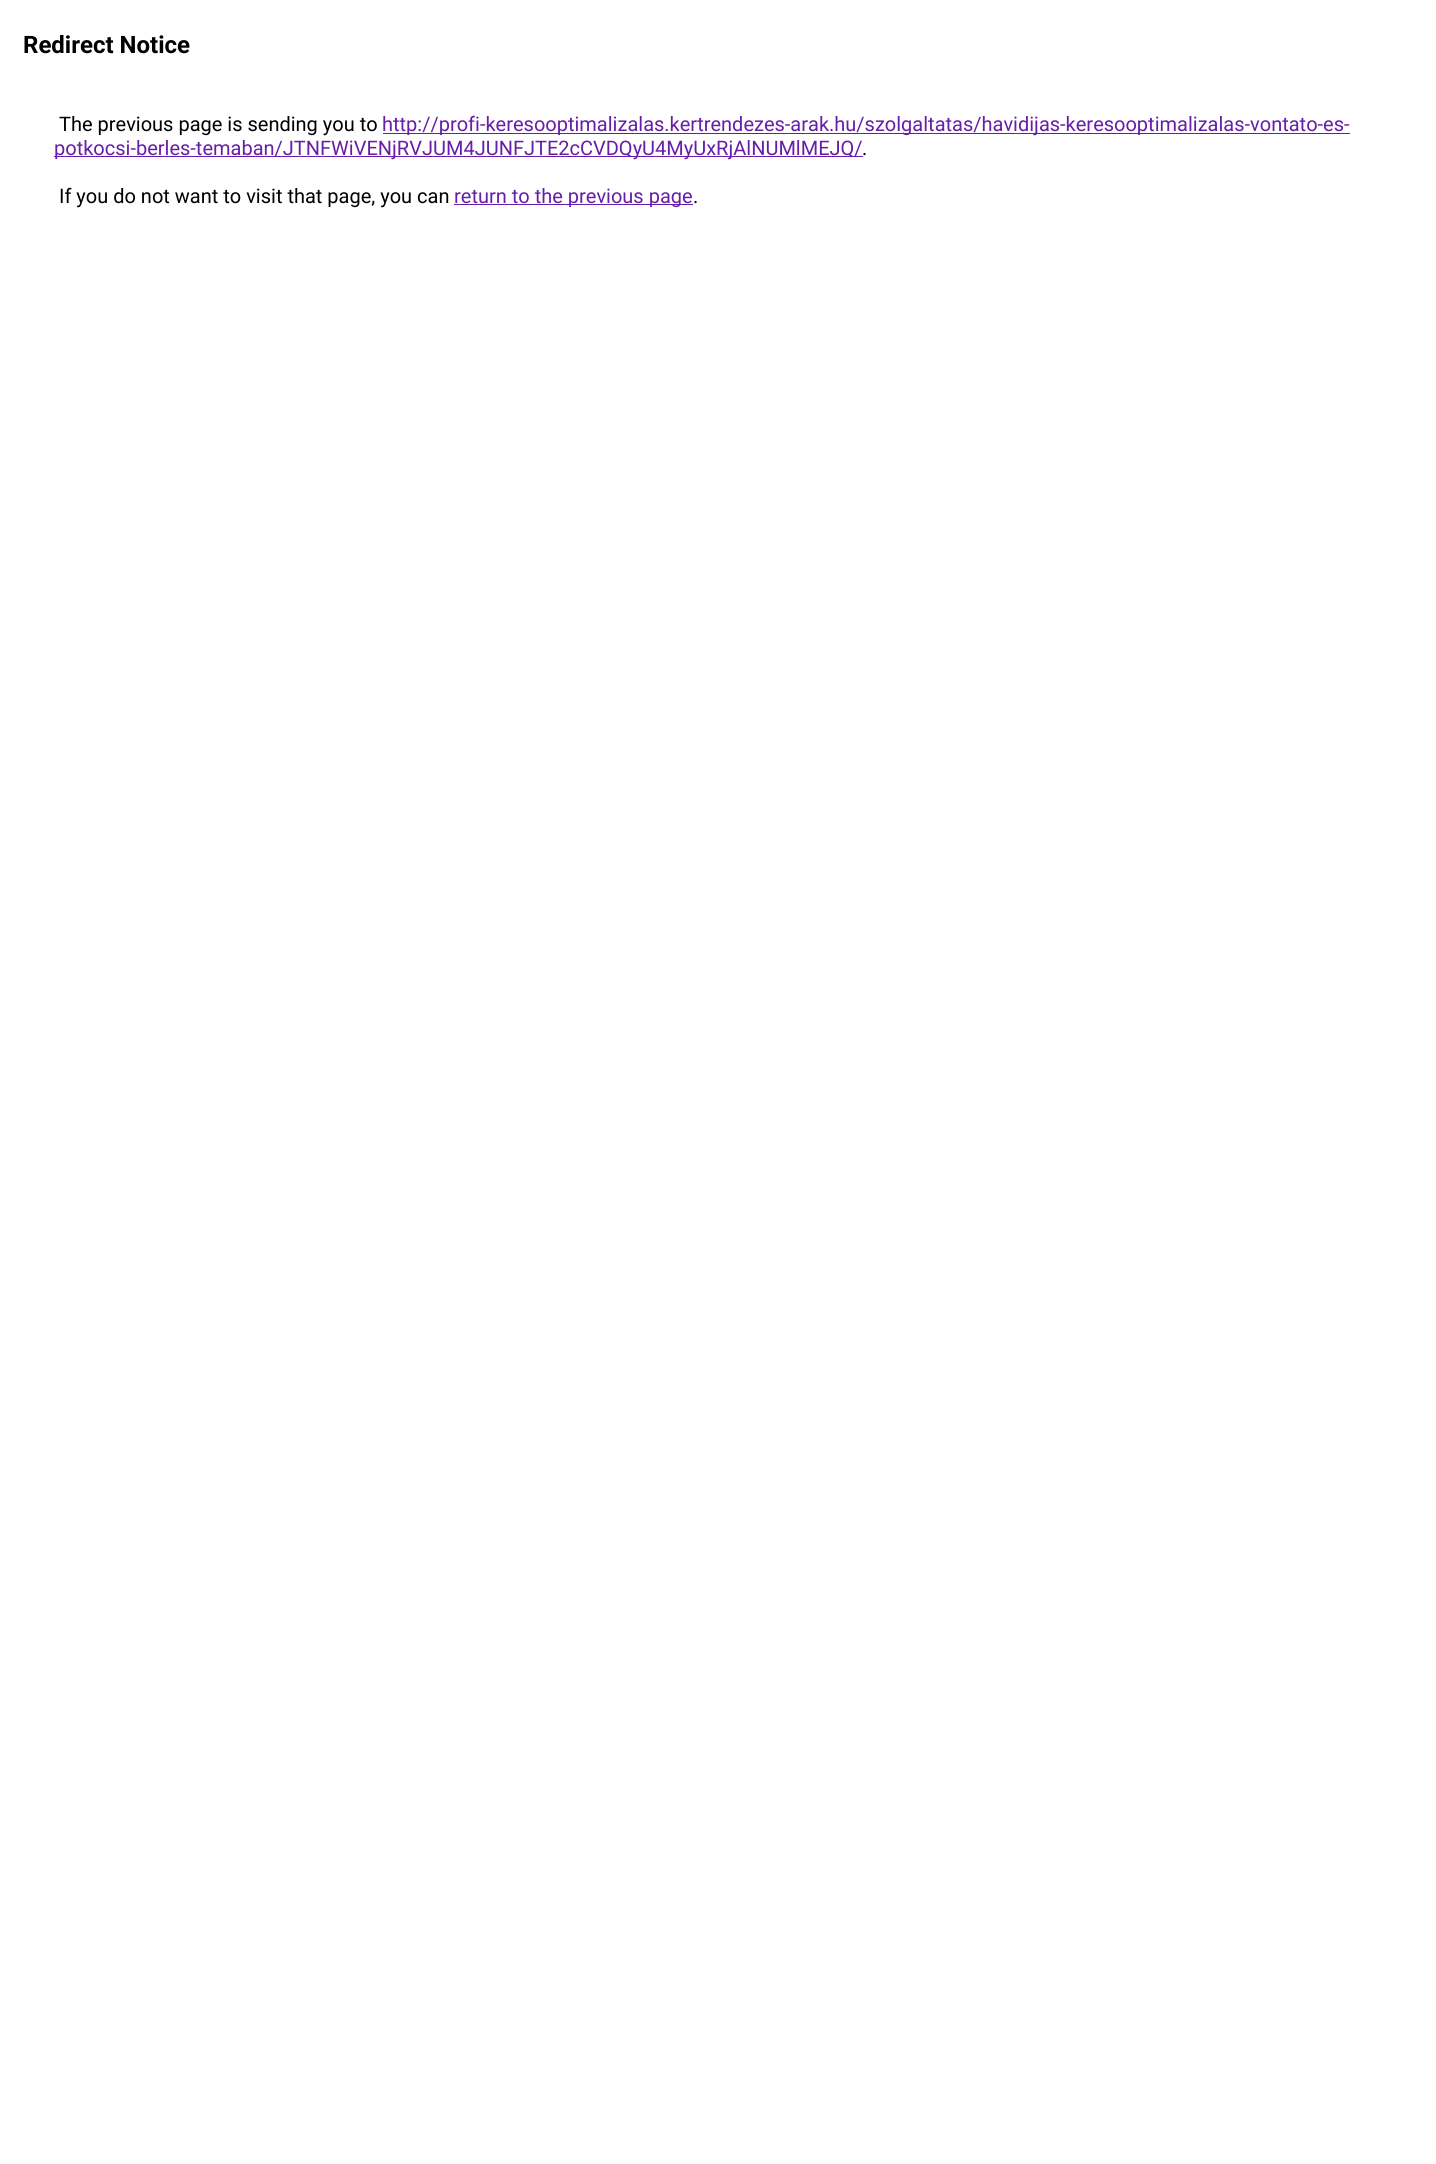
#include <cairo/cairo.h>
#include <math.h>
#include <stddef.h>

static cairo_t *cr;

static void use_color(int r, int g, int b) {
  cairo_set_source_rgb(cr, r / 255.0, g / 255.0, b / 255.0);
}

static void text(double x, double y, const char *s, const char *family, double size, int italic, int bold, int r, int g, int b) {
  cairo_select_font_face(cr, family, italic ? CAIRO_FONT_SLANT_ITALIC : CAIRO_FONT_SLANT_NORMAL,
    bold ? CAIRO_FONT_WEIGHT_BOLD : CAIRO_FONT_WEIGHT_NORMAL);
  cairo_set_font_size(cr, size);
  use_color(r, g, b);
  cairo_move_to(cr, x, y);
  cairo_show_text(cr, s);
}

static void box(double x, double y, double w, double h, int r, int g, int b) {
  use_color(r, g, b);
  cairo_rectangle(cr, x, y, w, h);
  cairo_fill(cr);
}

static void draw(void) {
  use_color(255, 255, 255);
  cairo_paint(cr);
  box(383, 133, 967, 1, 104, 29, 168);
  box(54, 156, 809, 1, 104, 29, 168);
  box(454, 204, 239, 1, 104, 29, 168);
  text(23, 53, "Redirect Notice", "Roboto", 24, 0, 1, 0, 0, 0);
  text(59, 131, "The previous page is sending you to", "Roboto", 20, 0, 0, 0, 0, 0);
  text(382, 131, "http://profi-keresooptimalizalas.kertrendezes-arak.hu/szolgaltatas/havidijas-keresooptimalizalas-vontato-es-", "Roboto", 20, 0, 0, 104, 29, 168);
  text(54, 155, "potkocsi-berles-temaban/JTNFWiVENjRVJUM4JUNFJTE2cCVDQyU4MyUxRjAlNUMlMEJQ/", "Roboto", 20, 0, 0, 104, 29, 168);
  text(862, 155, ".", "Roboto", 20, 0, 0, 0, 0, 0);
  text(59, 203, "If you do not want to visit that page, you can", "Roboto", 20, 0, 0, 0, 0, 0);
  text(454, 203, "return to the previous page", "Roboto", 20, 0, 0, 104, 29, 168);
  text(693, 203, ".", "Roboto", 20, 0, 0, 0, 0, 0);
}

int main(void) {
  cairo_surface_t *surface = cairo_image_surface_create(CAIRO_FORMAT_RGB24, 1436, 2164);
  cr = cairo_create(surface);
  cairo_font_options_t *options = cairo_font_options_create();
  cairo_font_options_set_hint_metrics(options, CAIRO_HINT_METRICS_OFF);
  cairo_font_options_set_hint_style(options, CAIRO_HINT_STYLE_NONE);
  cairo_set_font_options(cr, options);
  cairo_set_miter_limit(cr, 4);
  draw();
  cairo_surface_write_to_png(surface, "out.png");
  cairo_font_options_destroy(options);
  cairo_destroy(cr);
  cairo_surface_destroy(surface);
  return 0;
}
